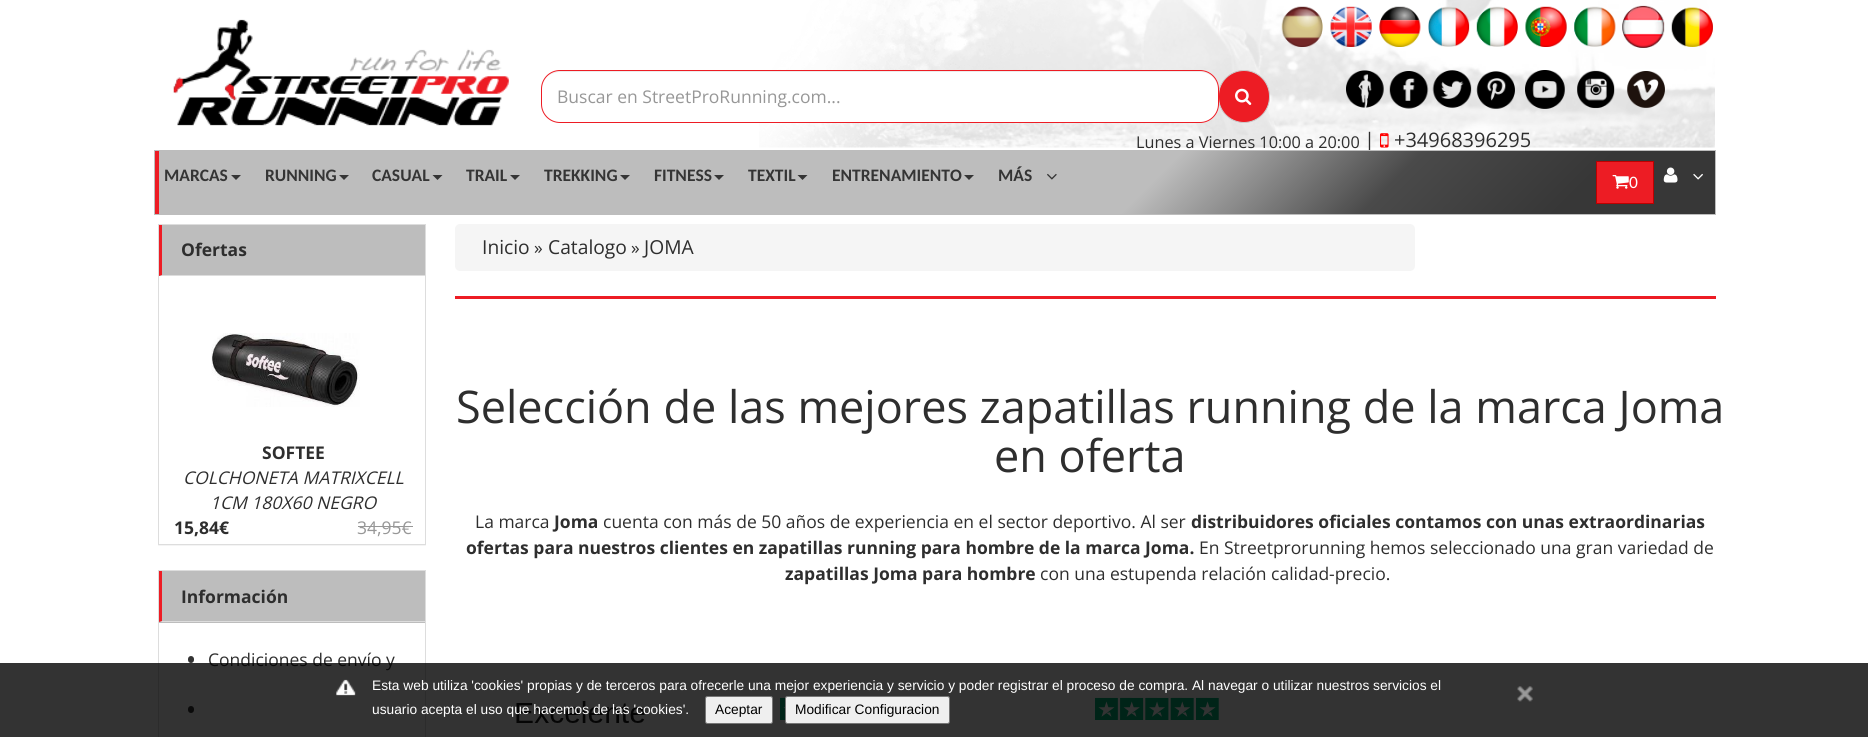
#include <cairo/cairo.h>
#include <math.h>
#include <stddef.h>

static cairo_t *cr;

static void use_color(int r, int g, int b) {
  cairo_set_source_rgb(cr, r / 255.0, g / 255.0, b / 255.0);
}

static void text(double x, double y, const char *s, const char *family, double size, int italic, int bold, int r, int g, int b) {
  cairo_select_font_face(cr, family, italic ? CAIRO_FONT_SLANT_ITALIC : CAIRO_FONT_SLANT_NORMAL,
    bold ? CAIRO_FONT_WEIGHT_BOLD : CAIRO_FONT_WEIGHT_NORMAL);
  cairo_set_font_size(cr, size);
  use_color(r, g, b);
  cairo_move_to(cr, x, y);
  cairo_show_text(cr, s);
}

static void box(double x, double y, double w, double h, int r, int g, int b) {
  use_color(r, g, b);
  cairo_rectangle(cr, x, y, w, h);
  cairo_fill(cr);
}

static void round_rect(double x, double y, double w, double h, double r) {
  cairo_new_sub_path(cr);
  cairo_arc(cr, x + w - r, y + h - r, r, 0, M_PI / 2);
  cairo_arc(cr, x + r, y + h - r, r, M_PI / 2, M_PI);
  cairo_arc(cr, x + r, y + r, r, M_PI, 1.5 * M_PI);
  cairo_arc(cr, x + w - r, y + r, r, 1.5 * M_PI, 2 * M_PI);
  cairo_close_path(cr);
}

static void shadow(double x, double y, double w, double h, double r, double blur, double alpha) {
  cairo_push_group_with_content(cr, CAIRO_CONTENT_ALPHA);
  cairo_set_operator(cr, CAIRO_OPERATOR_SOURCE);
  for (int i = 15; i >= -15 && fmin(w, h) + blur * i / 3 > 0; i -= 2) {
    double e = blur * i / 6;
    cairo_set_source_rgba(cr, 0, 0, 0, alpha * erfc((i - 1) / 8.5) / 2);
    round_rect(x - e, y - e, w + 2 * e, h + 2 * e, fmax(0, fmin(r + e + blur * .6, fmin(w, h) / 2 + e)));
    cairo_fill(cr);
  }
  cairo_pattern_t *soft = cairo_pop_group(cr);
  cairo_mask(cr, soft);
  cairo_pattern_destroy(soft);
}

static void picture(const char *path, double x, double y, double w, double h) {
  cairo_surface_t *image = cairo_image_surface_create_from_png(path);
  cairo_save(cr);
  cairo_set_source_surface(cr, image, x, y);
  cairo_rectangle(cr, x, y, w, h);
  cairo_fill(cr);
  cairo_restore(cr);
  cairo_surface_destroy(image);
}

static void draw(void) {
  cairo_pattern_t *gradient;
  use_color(255, 255, 255);
  cairo_paint(cr);
  picture("img_01.png", 759, 0, 956, 148);
  picture("img_02.png", 173, 19, 336, 107);
  use_color(237, 28, 36);
  round_rect(1218.5, 70.5, 51, 52, 25.5);
  cairo_fill_preserve(cr);
  use_color(204, 204, 204);
  cairo_set_line_width(cr, 1);
  cairo_stroke(cr);
  use_color(255, 255, 255);
  round_rect(541, 70, 678, 53, 19);
  cairo_fill(cr);
  use_color(236, 236, 236);
  cairo_new_path(cr);
  cairo_move_to(cr, 560, 72);
  cairo_line_to(cr, 1200, 72);
  cairo_curve_to(cr, 1210, 72, 1218, 80, 1218, 90);
  cairo_line_to(cr, 1218, 89);
  cairo_curve_to(cr, 1218, 79, 1210, 71, 1200, 71);
  cairo_line_to(cr, 561, 71);
  cairo_curve_to(cr, 556, 71, 551, 73, 548, 76);
  cairo_curve_to(cr, 551, 74, 555, 72, 560, 72);
  cairo_close_path(cr);
  cairo_fill(cr);
  round_rect(541.5, 70.5, 677, 52, 18.5);
  use_color(237, 28, 36);
  cairo_stroke(cr);
  picture("img_03.png", 1235, 88, 17, 17);
  picture("img_04.png", 1281, 6, 42, 41);
  picture("img_05.png", 1330, 6, 42, 41);
  picture("img_06.png", 1379, 6, 42, 41);
  picture("img_07.png", 1428, 6, 42, 41);
  picture("img_08.png", 1476, 6, 42, 41);
  picture("img_09.png", 1525, 6, 42, 41);
  picture("img_10.png", 1574, 6, 42, 41);
  picture("img_11.png", 1622, 5, 43, 43);
  picture("img_12.png", 1671, 7, 42, 40);
  picture("img_13.png", 1346, 70, 38, 38);
  picture("img_14.png", 1389, 71, 40, 38);
  picture("img_15.png", 1432, 70, 40, 38);
  picture("img_16.png", 1476, 71, 39, 38);
  picture("img_17.png", 1525, 70, 40, 39);
  picture("img_18.png", 1577, 70, 38, 39);
  picture("img_19.png", 1627, 71, 38, 37);
  picture("img_20.png", 1380, 133, 9, 15);
  box(155, 151, 4, 63, 237, 28, 36);
  cairo_save(cr);
  cairo_rectangle(cr, 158, 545, 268, 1);
  cairo_clip(cr);
  use_color(0, 0, 0);
  shadow(158, 225, 268, 321, 0, 0.5, 0.05);
  cairo_restore(cr);
  cairo_rectangle(cr, 158.5, 224.5, 267, 320);
  use_color(221, 221, 221);
  cairo_stroke(cr);
  box(159, 225, 266, 51, 189, 189, 189);
  use_color(221, 221, 221);
  cairo_new_path(cr);
  cairo_move_to(cr, 425, 276);
  cairo_line_to(cr, 159, 276);
  cairo_line_to(cr, 162, 275);
  cairo_line_to(cr, 425, 275);
  cairo_close_path(cr);
  cairo_fill(cr);
  use_color(237, 28, 36);
  cairo_new_path(cr);
  cairo_move_to(cr, 159, 276);
  cairo_line_to(cr, 159, 225);
  cairo_line_to(cr, 162, 225);
  cairo_line_to(cr, 162, 275);
  cairo_close_path(cr);
  cairo_fill(cr);
  picture("img_25.png", 211, 333, 149, 74);
  box(358, 526, 55, 1, 151, 151, 151);
  cairo_rectangle(cr, 158.5, 570.5, 267, 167);
  use_color(221, 221, 221);
  cairo_stroke(cr);
  box(159, 571, 266, 52, 189, 189, 189);
  use_color(221, 221, 221);
  cairo_new_path(cr);
  cairo_move_to(cr, 425, 622);
  cairo_line_to(cr, 159, 622);
  cairo_line_to(cr, 162, 621);
  cairo_line_to(cr, 425, 621);
  cairo_close_path(cr);
  cairo_fill(cr);
  use_color(237, 28, 36);
  cairo_new_path(cr);
  cairo_move_to(cr, 159, 622);
  cairo_line_to(cr, 159, 571);
  cairo_line_to(cr, 162, 571);
  cairo_line_to(cr, 162, 621);
  cairo_close_path(cr);
  cairo_fill(cr);
  use_color(51, 51, 51);
  round_rect(188, 656, 6, 7, 3);
  cairo_fill(cr);
  round_rect(188, 706, 6, 7, 3);
  cairo_fill(cr);
  use_color(245, 245, 245);
  round_rect(455, 224, 960, 47, 5);
  cairo_fill(cr);
  box(455, 296, 1261, 3, 237, 28, 36);
  picture("img_26.png", 516, 697, 703, 26);
  text(557, 103, "Buscar en StreetProRunning.com...", "Open Sans", 17.5, 0, 0, 151, 151, 151);
  text(1136, 148, "Lunes a Viernes 10:00 a 20:00", "Open Sans", 16.25, 0, 0, 46, 46, 46);
  text(1364, 147, "|", "Open Sans", 20, 0, 0, 46, 46, 46);
  text(1394, 147, "+34968396295", "Open Sans", 20, 0, 0, 46, 46, 46);
  cairo_rectangle(cr, 154.5, 150.5, 1561, 64);
  use_color(189, 189, 189);
  cairo_stroke(cr);
  box(159, 151, 15, 63, 189, 189, 189);
  gradient = cairo_pattern_create_linear(543, -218, 1345, 583);
  cairo_pattern_add_color_stop_rgba(gradient, 0, 0.741, 0.741, 0.741, 1);
  cairo_pattern_add_color_stop_rgba(gradient, 0.63, 0.741, 0.741, 0.741, 1);
  cairo_pattern_add_color_stop_rgba(gradient, 0.78, 0.29, 0.29, 0.29, 1);
  cairo_pattern_add_color_stop_rgba(gradient, 0.9, 0.216, 0.216, 0.216, 1);
  cairo_pattern_add_color_stop_rgba(gradient, 1, 0.216, 0.216, 0.216, 1);
  cairo_set_source(cr, gradient);
  cairo_pattern_destroy(gradient);
  cairo_rectangle(cr, 174, 151, 1541, 63);
  cairo_fill(cr);
  text(164, 181, "MARCAS", "Carlito", 17.5, 0, 1, 53, 53, 53);
  cairo_new_path(cr);
  cairo_move_to(cr, 231, 175);
  cairo_line_to(cr, 241, 175);
  cairo_line_to(cr, 236, 180);
  cairo_close_path(cr);
  cairo_fill(cr);
  text(265, 181, "RUNNING", "Carlito", 17.5, 0, 1, 53, 53, 53);
  cairo_new_path(cr);
  cairo_move_to(cr, 339, 175);
  cairo_line_to(cr, 349, 175);
  cairo_line_to(cr, 344, 180);
  cairo_close_path(cr);
  cairo_fill(cr);
  text(372, 181, "CASUAL", "Carlito", 17.5, 0, 1, 53, 53, 53);
  cairo_new_path(cr);
  cairo_move_to(cr, 432.5, 175);
  cairo_line_to(cr, 442.5, 175);
  cairo_line_to(cr, 437.5, 180);
  cairo_close_path(cr);
  cairo_fill(cr);
  text(466, 181, "TRAIL", "Carlito", 17.5, 0, 1, 53, 53, 53);
  cairo_new_path(cr);
  cairo_move_to(cr, 510, 175);
  cairo_line_to(cr, 520, 175);
  cairo_line_to(cr, 515, 180);
  cairo_close_path(cr);
  cairo_fill(cr);
  text(544, 181, "TREKKING", "Carlito", 17.5, 0, 1, 53, 53, 53);
  cairo_new_path(cr);
  cairo_move_to(cr, 620, 175);
  cairo_line_to(cr, 630, 175);
  cairo_line_to(cr, 625, 180);
  cairo_close_path(cr);
  cairo_fill(cr);
  text(654, 181, "FITNESS", "Carlito", 17.5, 0, 1, 53, 53, 53);
  cairo_new_path(cr);
  cairo_move_to(cr, 714, 175);
  cairo_line_to(cr, 724, 175);
  cairo_line_to(cr, 719, 180);
  cairo_close_path(cr);
  cairo_fill(cr);
  text(748, 181, "TEXTIL", "Carlito", 17.5, 0, 1, 53, 53, 53);
  cairo_new_path(cr);
  cairo_move_to(cr, 797.5, 175);
  cairo_line_to(cr, 807.5, 175);
  cairo_line_to(cr, 802.5, 180);
  cairo_close_path(cr);
  cairo_fill(cr);
  text(832, 181, "ENTRENAMIENTO", "Carlito", 17.5, 0, 1, 53, 53, 53);
  cairo_new_path(cr);
  cairo_move_to(cr, 964, 175);
  cairo_line_to(cr, 974, 175);
  cairo_line_to(cr, 969, 180);
  cairo_close_path(cr);
  cairo_fill(cr);
  text(998, 181, "MÁS", "Carlito", 17.5, 0, 1, 53, 53, 53);
  picture("img_21.png", 1047, 173, 10, 7);
  use_color(237, 28, 36);
  cairo_rectangle(cr, 1596.5, 161.5, 57, 42);
  cairo_fill_preserve(cr);
  use_color(189, 0, 0);
  cairo_stroke(cr);
  picture("img_22.png", 1612, 175, 17, 14);
  text(1629, 188, "0", "Carlito", 17.5, 0, 0, 255, 255, 255);
  picture("img_23.png", 1663, 167, 15, 16);
  picture("img_24.png", 1693, 173, 10, 7);
  text(181, 256, "Ofertas", "Open Sans", 17.5, 0, 1, 46, 46, 46);
  text(262, 459, "SOFTEE", "Open Sans", 17.5, 0, 1, 46, 46, 46);
  text(183, 484, "COLCHONETA MATRIXCELL", "Open Sans", 17.5, 1, 0, 46, 46, 46);
  text(210, 509, "1CM 180X60 NEGRO", "Open Sans", 17.5, 1, 0, 46, 46, 46);
  text(174, 534, "15,84€", "Open Sans", 17.5, 0, 1, 46, 46, 46);
  text(357, 534, "34,95€", "Open Sans", 17.5, 0, 0, 151, 151, 151);
  text(181, 603, "Información", "Open Sans", 17.5, 0, 1, 46, 46, 46);
  text(208, 666, "Condiciones de envío y", "Open Sans", 17.5, 0, 0, 46, 46, 46);
  text(482, 254, "Inicio", "Open Sans", 19.25, 0, 0, 46, 46, 46);
  text(534, 254, "»", "Open Sans", 17.5, 0, 0, 46, 46, 46);
  text(548, 254, "Catalogo", "Open Sans", 19.25, 0, 0, 46, 46, 46);
  text(631, 254, "»", "Open Sans", 17.5, 0, 0, 46, 46, 46);
  text(644, 254, "JOMA", "Open Sans", 19.25, 0, 0, 46, 46, 46);
  text(456, 423, "Selección de las mejores zapatillas running de la marca Joma", "Open Sans", 45, 0, 0, 46, 46, 46);
  text(994, 472, "en oferta", "Open Sans", 45, 0, 0, 46, 46, 46);
  text(475, 528, "La marca", "Open Sans", 17.5, 0, 0, 46, 46, 46);
  text(554, 528, "Joma", "Open Sans", 17.5, 0, 1, 46, 46, 46);
  text(603, 528, "cuenta con más de 50 años de experiencia en el sector deportivo. Al ser", "Open Sans", 17.5, 0, 0, 46, 46, 46);
  text(1191, 528, "distribuidores oficiales contamos con unas extraordinarias", "Open Sans", 17.5, 0, 1, 46, 46, 46);
  text(466, 554, "ofertas para nuestros clientes en zapatillas running para hombre de la marca Joma.", "Open Sans", 17.5, 0, 1, 46, 46, 46);
  text(1199, 554, "En Streetprorunning hemos seleccionado una gran variedad de", "Open Sans", 17.5, 0, 0, 46, 46, 46);
  text(785, 580, "zapatillas Joma para hombre", "Open Sans", 17.5, 0, 1, 46, 46, 46);
  text(1040, 580, "con una estupenda relación calidad-precio.", "Open Sans", 17.5, 0, 0, 46, 46, 46);
  cairo_set_source_rgba(cr, 0, 0, 0, 0.8);
  cairo_rectangle(cr, 0, 663, 1868, 74);
  cairo_fill(cr);
  picture("img_27.png", 336, 679, 20, 17);
  text(372, 690, "Esta web utiliza 'cookies' propias y de terceros para ofrecerle una mejor experiencia y servicio y poder registrar el proceso de compra. Al navegar o utilizar nuestros servicios el", "Liberation Sans", 13.75, 0, 0, 255, 255, 255);
  picture("img_28.png", 1517, 686, 16, 16);
  text(372, 714, "usuario acepta el uso que hacemos de las 'cookies'.", "Liberation Sans", 13.75, 0, 0, 255, 255, 255);
  use_color(239, 239, 239);
  round_rect(705.5, 696.5, 67, 27, 2);
  cairo_fill_preserve(cr);
  use_color(118, 118, 118);
  cairo_stroke(cr);
  text(715, 714, "Aceptar", "Liberation Sans", 13.75, 0, 0, 0, 0, 0);
  use_color(239, 239, 239);
  round_rect(785.5, 696.5, 164, 27, 2);
  cairo_fill_preserve(cr);
  use_color(118, 118, 118);
  cairo_stroke(cr);
  text(795, 714, "Modificar Configuracion", "Liberation Sans", 13.75, 0, 0, 0, 0, 0);
}

int main(void) {
  cairo_surface_t *surface = cairo_image_surface_create(CAIRO_FORMAT_RGB24, 1868, 737);
  cr = cairo_create(surface);
  cairo_font_options_t *options = cairo_font_options_create();
  cairo_font_options_set_hint_metrics(options, CAIRO_HINT_METRICS_OFF);
  cairo_font_options_set_hint_style(options, CAIRO_HINT_STYLE_NONE);
  cairo_set_font_options(cr, options);
  cairo_set_miter_limit(cr, 4);
  draw();
  cairo_surface_write_to_png(surface, "out.png");
  cairo_font_options_destroy(options);
  cairo_destroy(cr);
  cairo_surface_destroy(surface);
  return 0;
}
